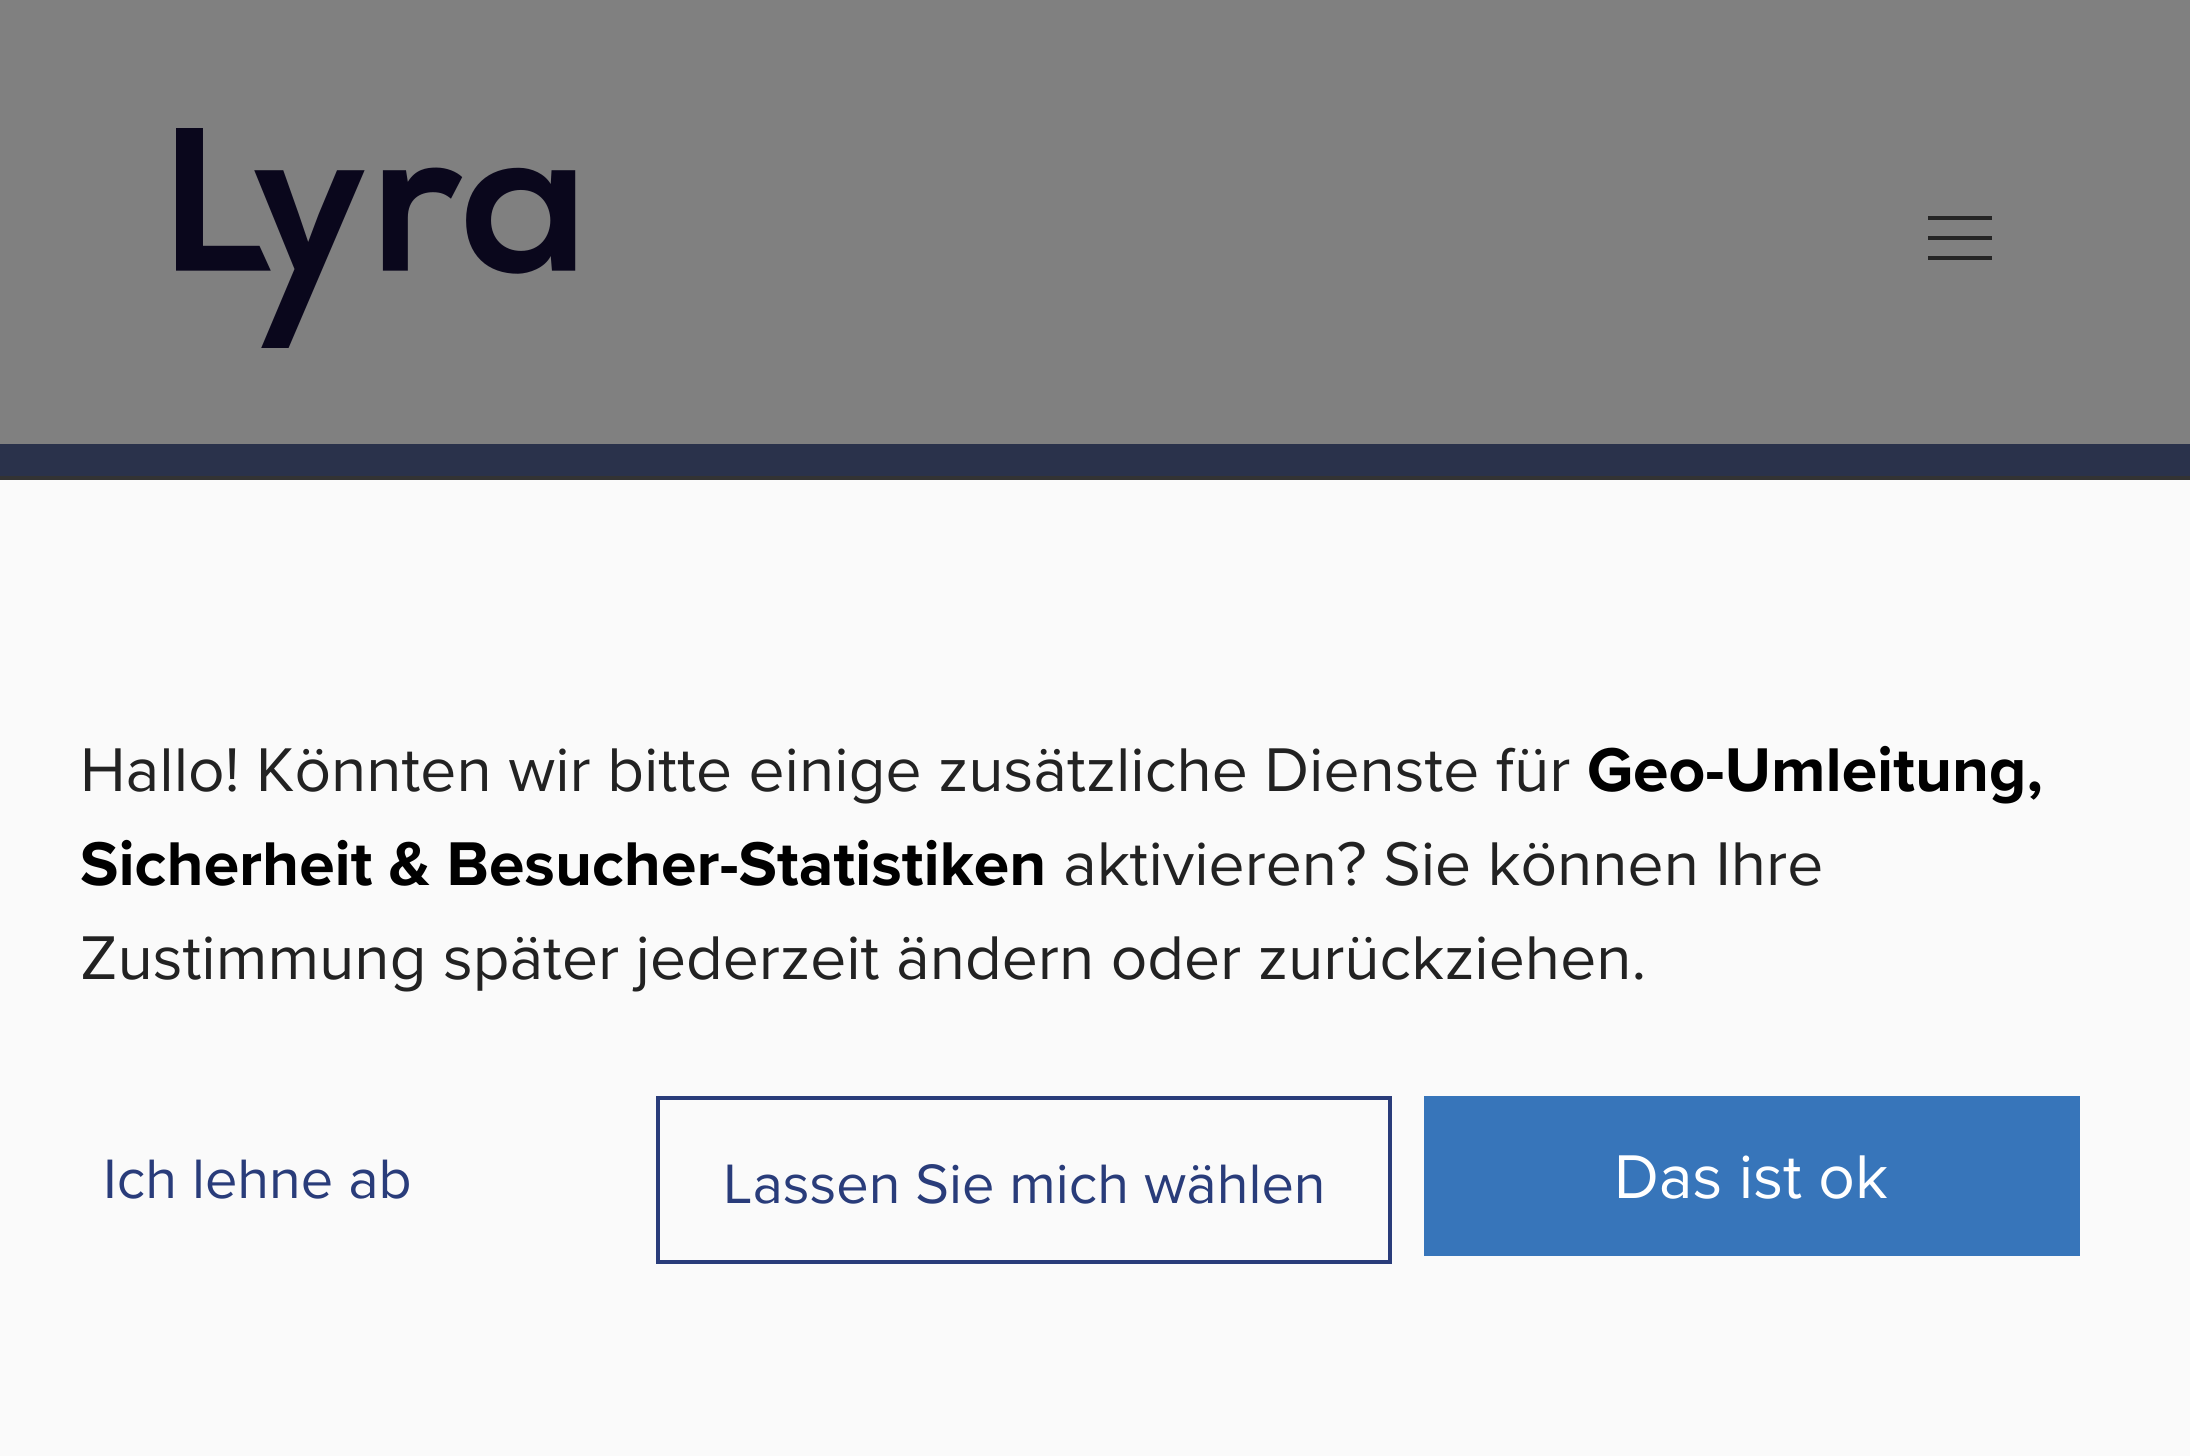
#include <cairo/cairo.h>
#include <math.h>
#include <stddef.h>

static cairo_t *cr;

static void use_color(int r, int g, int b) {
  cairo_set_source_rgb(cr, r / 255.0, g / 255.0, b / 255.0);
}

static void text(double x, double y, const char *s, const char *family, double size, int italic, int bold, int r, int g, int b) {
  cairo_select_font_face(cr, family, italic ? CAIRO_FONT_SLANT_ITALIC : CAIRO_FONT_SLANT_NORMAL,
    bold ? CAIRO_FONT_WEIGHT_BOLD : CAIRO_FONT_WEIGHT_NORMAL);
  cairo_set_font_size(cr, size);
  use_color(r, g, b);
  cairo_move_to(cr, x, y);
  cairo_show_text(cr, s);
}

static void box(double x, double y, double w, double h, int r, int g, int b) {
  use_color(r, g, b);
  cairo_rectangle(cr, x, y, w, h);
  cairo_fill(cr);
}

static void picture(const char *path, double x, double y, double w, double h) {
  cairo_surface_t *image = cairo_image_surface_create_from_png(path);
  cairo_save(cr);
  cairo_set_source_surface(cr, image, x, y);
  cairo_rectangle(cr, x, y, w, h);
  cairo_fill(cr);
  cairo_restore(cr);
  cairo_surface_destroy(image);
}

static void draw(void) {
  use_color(128, 128, 128);
  cairo_paint(cr);
  box(0, 444, 2190, 32, 42, 50, 75);
  picture("img_01.png", 176, 128, 400, 220);
  box(1928, 216, 64, 4, 37, 37, 37);
  box(1928, 236, 64, 4, 37, 37, 37);
  box(1928, 256, 64, 4, 37, 37, 37);
  box(0, 480, 2190, 976, 250, 250, 250);
  box(0, 476, 2190, 4, 51, 51, 51);
  cairo_rectangle(cr, 658, 1098, 732, 164);
  use_color(41, 60, 122);
  cairo_set_line_width(cr, 4);
  cairo_stroke(cr);
  box(1424, 1096, 656, 160, 55, 117, 186);
  text(80, 791, "Hallo! Könnten wir bitte einige zusätzliche Dienste für", "Proxima Nova", 64, 0, 0, 34, 34, 34);
  text(1587, 791, "Geo-Umleitung,", "Proxima Nova", 64, 0, 1, 0, 0, 0);
  text(80, 885, "Sicherheit & Besucher-Statistiken", "Proxima Nova", 64, 0, 1, 0, 0, 0);
  text(1063, 885, "aktivieren? Sie können Ihre", "Proxima Nova", 64, 0, 0, 34, 34, 34);
  text(80, 979, "Zustimmung später jederzeit ändern oder zurückziehen.", "Proxima Nova", 64, 0, 0, 34, 34, 34);
  text(103, 1198, "Ich lehne ab", "Proxima Nova", 57.6, 0, 0, 41, 60, 122);
  text(723, 1203, "Lassen Sie mich wählen", "Proxima Nova", 57.6, 0, 0, 41, 60, 122);
  text(1614, 1198, "Das ist ok", "Proxima Nova", 64, 0, 0, 255, 255, 255);
}

int main(void) {
  cairo_surface_t *surface = cairo_image_surface_create(CAIRO_FORMAT_RGB24, 2190, 1456);
  cr = cairo_create(surface);
  cairo_font_options_t *options = cairo_font_options_create();
  cairo_font_options_set_hint_metrics(options, CAIRO_HINT_METRICS_OFF);
  cairo_font_options_set_hint_style(options, CAIRO_HINT_STYLE_NONE);
  cairo_set_font_options(cr, options);
  cairo_set_miter_limit(cr, 4);
  draw();
  cairo_surface_write_to_png(surface, "out.png");
  cairo_font_options_destroy(options);
  cairo_destroy(cr);
  cairo_surface_destroy(surface);
  return 0;
}
